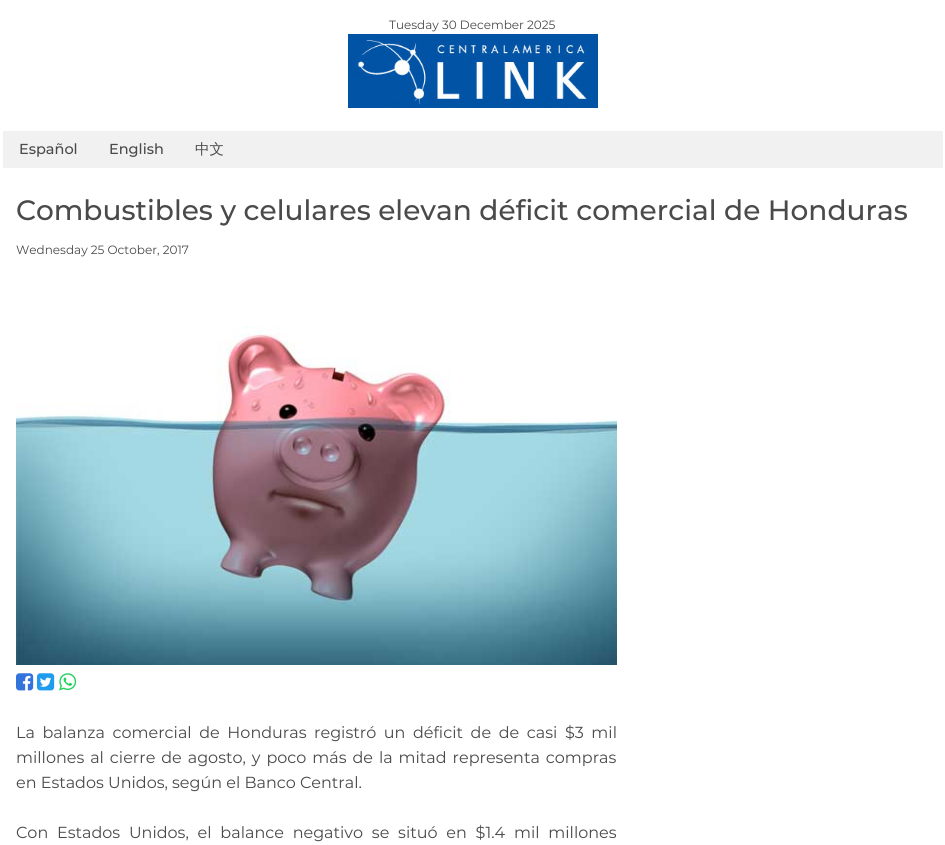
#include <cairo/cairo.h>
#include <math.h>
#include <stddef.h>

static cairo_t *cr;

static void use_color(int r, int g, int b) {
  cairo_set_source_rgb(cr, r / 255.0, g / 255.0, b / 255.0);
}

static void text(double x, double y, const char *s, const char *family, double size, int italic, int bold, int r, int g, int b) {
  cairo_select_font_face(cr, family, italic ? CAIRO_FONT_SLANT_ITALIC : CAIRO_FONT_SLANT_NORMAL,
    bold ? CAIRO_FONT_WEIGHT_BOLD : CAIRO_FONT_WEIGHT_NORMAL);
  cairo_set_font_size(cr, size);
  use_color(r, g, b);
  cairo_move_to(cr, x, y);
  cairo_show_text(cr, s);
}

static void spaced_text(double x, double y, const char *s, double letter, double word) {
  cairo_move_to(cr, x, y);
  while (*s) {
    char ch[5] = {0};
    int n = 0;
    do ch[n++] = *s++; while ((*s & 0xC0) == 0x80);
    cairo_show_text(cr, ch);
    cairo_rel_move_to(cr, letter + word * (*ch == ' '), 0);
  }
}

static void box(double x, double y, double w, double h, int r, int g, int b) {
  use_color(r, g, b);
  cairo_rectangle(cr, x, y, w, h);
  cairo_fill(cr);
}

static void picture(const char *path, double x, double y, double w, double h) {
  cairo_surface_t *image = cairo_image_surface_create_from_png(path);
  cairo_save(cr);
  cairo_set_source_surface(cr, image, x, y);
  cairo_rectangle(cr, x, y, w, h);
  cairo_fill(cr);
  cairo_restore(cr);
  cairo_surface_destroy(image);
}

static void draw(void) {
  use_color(255, 255, 255);
  cairo_paint(cr);
  picture("img_01.png", 348, 34, 250, 74);
  box(3, 131, 940, 37, 241, 241, 241);
  picture("img_02.png", 16, 326, 601, 339);
  picture("img_03.png", 16, 673, 18, 18);
  picture("img_04.png", 37, 673, 18, 18);
  picture("img_05.png", 59, 673, 18, 18);
  text(389, 29, "Tuesday 30 December 2025", "Montserrat", 12, 0, 0, 74, 74, 74);
  text(19, 154, "Español", "Montserrat Medium", 14.5, 0, 0, 74, 74, 74);
  text(109, 154, "English", "Montserrat Medium", 14.5, 0, 0, 74, 74, 74);
  text(195, 154, "中文", "WenQuanYi Zen Hei Medium", 14.5, 0, 0, 74, 74, 74);
  text(16, 220, "Combustibles y celulares elevan déficit comercial de Honduras", "Montserrat Medium", 28, 0, 0, 74, 74, 74);
  text(16, 254, "Wednesday 25 October, 2017", "Montserrat", 12, 0, 0, 74, 74, 74);
  cairo_set_font_size(cr, 16);
  spaced_text(16, 738, "La balanza comercial de Honduras registró un déficit de de casi $3 mil", 0, 3.4);
  spaced_text(16, 763, "millones al cierre de agosto, y poco más de la mitad representa compras", 0, 1.75);
  text(16, 788, "en Estados Unidos, según el Banco Central.", "Montserrat", 16, 0, 0, 74, 74, 74);
  spaced_text(16, 838, "Con Estados Unidos, el balance negativo se situó en $1.4 mil millones", 0, 4.6);
}

int main(void) {
  cairo_surface_t *surface = cairo_image_surface_create(CAIRO_FORMAT_RGB24, 945, 845);
  cr = cairo_create(surface);
  cairo_font_options_t *options = cairo_font_options_create();
  cairo_font_options_set_hint_metrics(options, CAIRO_HINT_METRICS_OFF);
  cairo_font_options_set_hint_style(options, CAIRO_HINT_STYLE_NONE);
  cairo_set_font_options(cr, options);
  cairo_set_miter_limit(cr, 4);
  draw();
  cairo_surface_write_to_png(surface, "out.png");
  cairo_font_options_destroy(options);
  cairo_destroy(cr);
  cairo_surface_destroy(surface);
  return 0;
}
